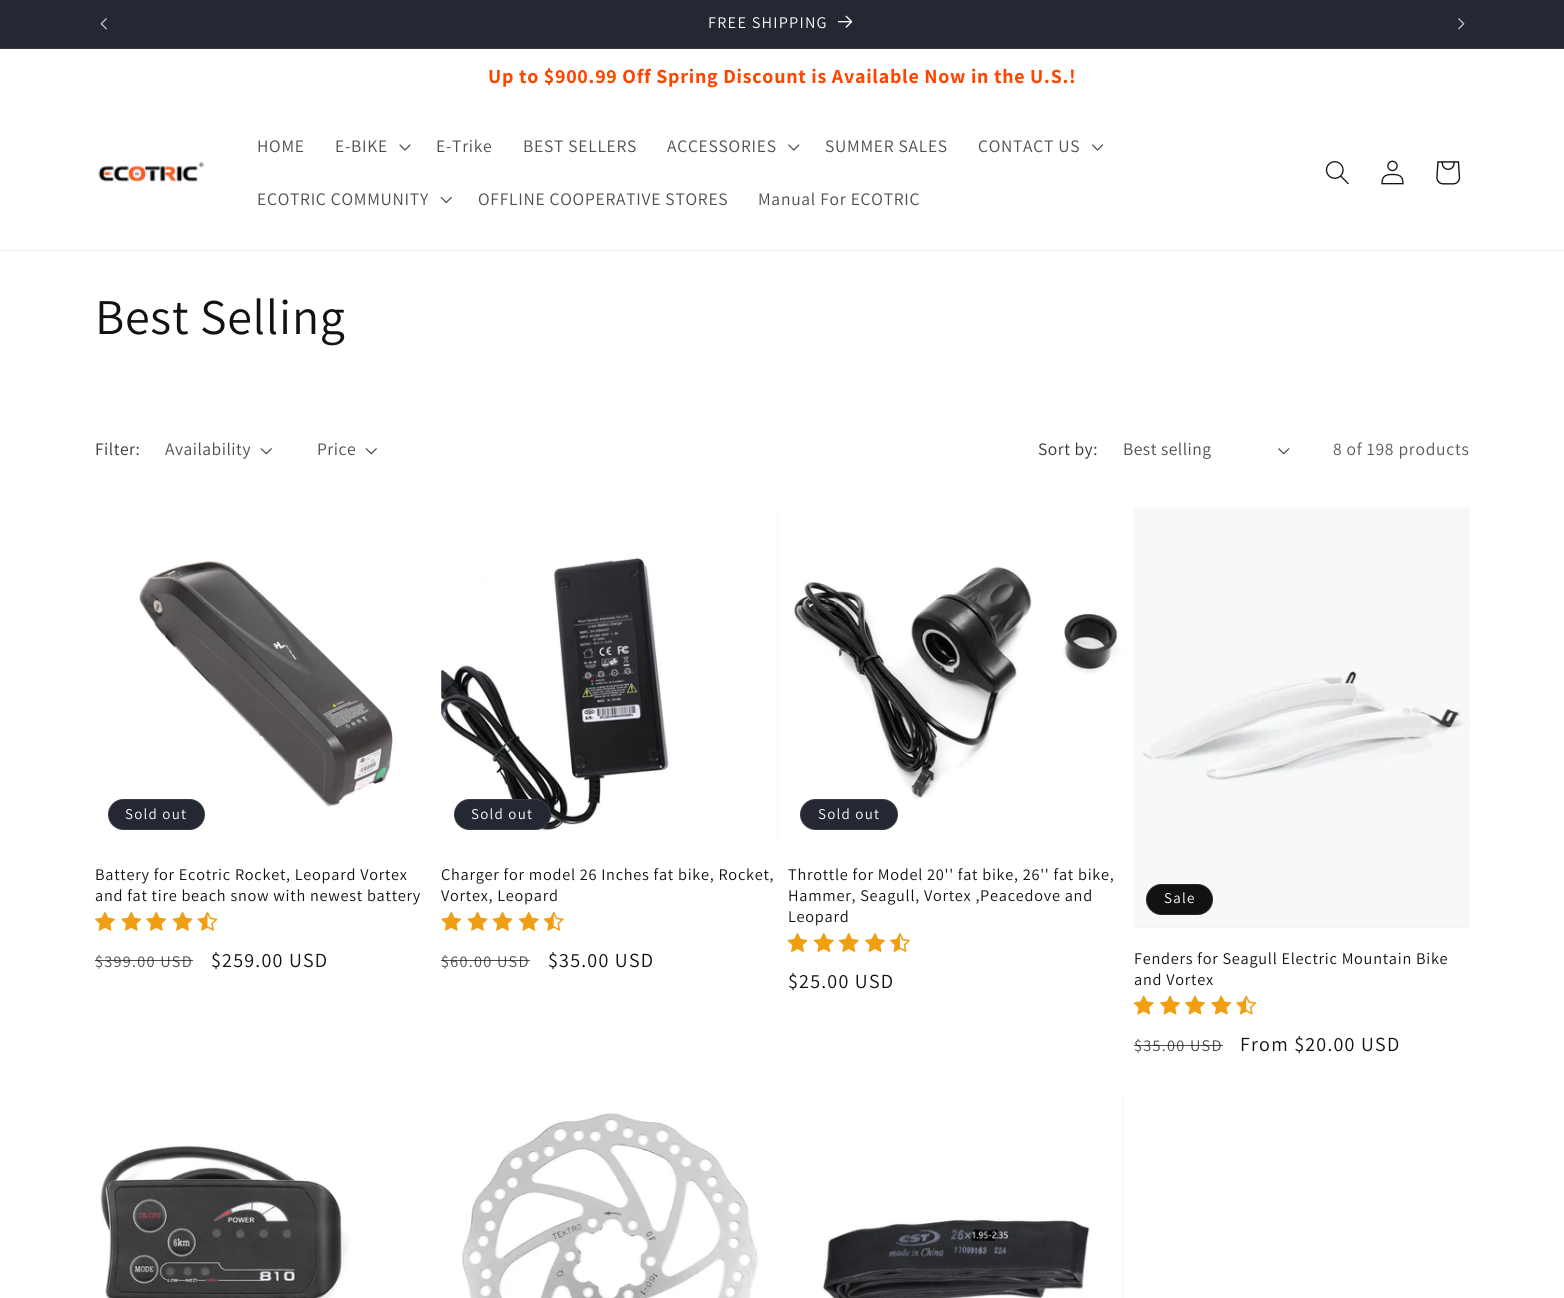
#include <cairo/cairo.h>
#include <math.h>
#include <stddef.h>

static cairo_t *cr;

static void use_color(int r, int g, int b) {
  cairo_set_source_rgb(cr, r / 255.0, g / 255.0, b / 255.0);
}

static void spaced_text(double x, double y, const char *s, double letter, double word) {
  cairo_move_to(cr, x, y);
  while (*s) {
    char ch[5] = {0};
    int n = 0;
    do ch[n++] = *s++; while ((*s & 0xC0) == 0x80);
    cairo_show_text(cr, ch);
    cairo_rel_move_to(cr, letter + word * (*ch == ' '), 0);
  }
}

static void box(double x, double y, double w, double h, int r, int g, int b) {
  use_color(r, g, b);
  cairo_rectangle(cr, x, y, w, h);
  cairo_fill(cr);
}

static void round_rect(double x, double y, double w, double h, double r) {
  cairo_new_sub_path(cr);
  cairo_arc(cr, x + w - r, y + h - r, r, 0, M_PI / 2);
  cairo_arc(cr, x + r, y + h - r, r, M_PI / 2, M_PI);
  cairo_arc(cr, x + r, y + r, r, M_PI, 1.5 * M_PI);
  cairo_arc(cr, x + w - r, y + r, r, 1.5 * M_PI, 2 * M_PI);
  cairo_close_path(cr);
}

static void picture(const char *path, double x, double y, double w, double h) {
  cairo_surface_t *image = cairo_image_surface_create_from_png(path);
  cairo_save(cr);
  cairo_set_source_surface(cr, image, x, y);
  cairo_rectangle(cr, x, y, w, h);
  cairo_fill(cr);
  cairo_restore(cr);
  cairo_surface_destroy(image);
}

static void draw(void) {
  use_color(255, 255, 255);
  cairo_paint(cr);
  box(0, 0, 1564, 48, 36, 40, 51);
  box(0, 48, 1564, 1, 54, 57, 67);
  picture("img_01.png", 100, 18, 7, 12);
  picture("img_02.png", 838, 15, 15, 13);
  picture("img_03.png", 1458, 18, 7, 12);
  box(0, 250, 1564, 1, 236, 236, 236);
  picture("img_04.png", 98, 162, 106, 20);
  picture("img_05.png", 399, 144, 12, 7);
  picture("img_06.png", 788, 144, 12, 7);
  picture("img_07.png", 1092, 144, 11, 7);
  picture("img_08.png", 440, 196, 12, 8);
  picture("img_09.png", 1325, 161, 24, 24);
  picture("img_10.png", 1381, 160, 23, 25);
  picture("img_11.png", 1436, 161, 25, 24);
  picture("img_12.png", 260, 448, 12, 7);
  picture("img_12.png", 365, 448, 12, 7);
  picture("img_13.png", 1278, 448, 12, 7);
  picture("img_14.png", 95, 508, 336, 336);
  use_color(36, 40, 51);
  round_rect(108, 799, 97, 31, 15.5);
  cairo_fill(cr);
  round_rect(108.5, 799.5, 96, 30, 15);
  cairo_set_source_rgba(cr, 1, 1, 1, 0.1);
  cairo_set_line_width(cr, 1);
  cairo_stroke(cr);
  picture("img_15.png", 95, 911, 20, 20);
  picture("img_16.png", 121, 911, 21, 20);
  picture("img_16.png", 146, 911, 21, 20);
  picture("img_17.png", 172, 911, 21, 20);
  picture("img_18.png", 197, 911, 21, 20);
  box(441, 508, 337, 336, 243, 243, 243);
  picture("img_19.png", 441, 508, 337, 336);
  use_color(36, 40, 51);
  round_rect(454, 799, 97, 31, 15.5);
  cairo_fill(cr);
  round_rect(454.5, 799.5, 96, 30, 15);
  cairo_set_source_rgba(cr, 1, 1, 1, 0.1);
  cairo_stroke(cr);
  picture("img_16.png", 441, 911, 21, 20);
  picture("img_17.png", 467, 911, 21, 20);
  picture("img_17.png", 492, 911, 21, 20);
  picture("img_20.png", 518, 911, 21, 20);
  picture("img_21.png", 543, 911, 21, 20);
  box(788, 508, 336, 336, 243, 243, 243);
  picture("img_22.png", 788, 508, 336, 336);
  use_color(36, 40, 51);
  round_rect(800, 799, 98, 31, 15.5);
  cairo_fill(cr);
  round_rect(800.5, 799.5, 97, 30, 15);
  cairo_set_source_rgba(cr, 1, 1, 1, 0.1);
  cairo_stroke(cr);
  picture("img_23.png", 787, 933, 21, 19);
  picture("img_24.png", 813, 933, 21, 19);
  picture("img_24.png", 838, 933, 21, 19);
  picture("img_25.png", 865, 933, 20, 19);
  picture("img_26.png", 890, 933, 20, 19);
  box(1134, 508, 336, 420, 243, 243, 243);
  picture("img_27.png", 1134, 507, 336, 420);
  use_color(18, 18, 18);
  round_rect(1146, 884, 67, 31, 15.5);
  cairo_fill(cr);
  round_rect(1146.5, 884.5, 66, 30, 15);
  cairo_set_source_rgba(cr, 1, 1, 1, 0.1);
  cairo_stroke(cr);
  picture("img_28.png", 1133, 995, 21, 20);
  picture("img_29.png", 1160, 995, 20, 20);
  picture("img_29.png", 1185, 995, 20, 20);
  picture("img_30.png", 1211, 995, 21, 20);
  picture("img_31.png", 1236, 995, 21, 20);
  picture("img_32.png", 95, 1091, 336, 207);
  picture("img_33.png", 441, 1091, 337, 207);
  picture("img_34.png", 788, 1091, 336, 207);
  cairo_select_font_face(cr, "Assistant", CAIRO_FONT_SLANT_NORMAL, CAIRO_FONT_WEIGHT_NORMAL);
  cairo_set_font_size(cr, 16.25);
  use_color(255, 255, 255);
  spaced_text(708, 28, "FREE SHIPPING", 1.25, 0);
  cairo_select_font_face(cr, "Assistant", CAIRO_FONT_SLANT_NORMAL, CAIRO_FONT_WEIGHT_BOLD);
  cairo_set_font_size(cr, 20);
  use_color(255, 69, 0);
  spaced_text(488, 83, "Up to $900.99 Off Spring Discount is Available Now in the U.S.!", 0.75, 0);
  cairo_select_font_face(cr, "Assistant", CAIRO_FONT_SLANT_NORMAL, CAIRO_FONT_WEIGHT_NORMAL);
  cairo_set_font_size(cr, 17.5);
  use_color(77, 77, 77);
  spaced_text(257, 152, "HOME", 0.75, 0);
  spaced_text(335, 152, "E-BIKE", 0.75, 0);
  spaced_text(436, 152, "E-Trike", 0.75, 0);
  spaced_text(523, 152, "BEST SELLERS", 0.75, 0);
  spaced_text(667, 152, "ACCESSORIES", 0.75, 0);
  spaced_text(825, 152, "SUMMER SALES", 0.75, 0);
  spaced_text(978, 152, "CONTACT US", 0.75, 0);
  spaced_text(257, 205, "ECOTRIC COMMUNITY", 0.75, 0);
  spaced_text(478, 205, "OFFLINE COOPERATIVE STORES", 0.75, 0);
  spaced_text(758, 205, "Manual For ECOTRIC", 0.75, 0);
  cairo_set_font_size(cr, 50);
  use_color(18, 18, 18);
  spaced_text(95, 334, "Best Selling", 0.75, 0);
  cairo_set_font_size(cr, 17.5);
  use_color(54, 54, 54);
  spaced_text(95, 455, "Filter:", 0.5, 0);
  use_color(77, 77, 77);
  spaced_text(165, 455, "Availability", 0.5, 0);
  spaced_text(317, 455, "Price", 0.5, 0);
  use_color(54, 54, 54);
  spaced_text(1038, 455, "Sort by:", 0.5, 0);
  use_color(77, 77, 77);
  spaced_text(1123, 455, "Best selling", 0.5, 0);
  use_color(89, 89, 89);
  spaced_text(1333, 455, "8 of 198 products", 0.75, 0);
  cairo_set_font_size(cr, 15);
  use_color(255, 255, 255);
  spaced_text(125, 819, "Sold out", 1.25, 0);
  cairo_set_font_size(cr, 16.25);
  use_color(18, 18, 18);
  spaced_text(95, 880, "Battery for Ecotric Rocket, Leopard Vortex", 0.75, 0);
  spaced_text(95, 901, "and fat tire beach snow with newest battery", 0.75, 0);
  use_color(77, 77, 77);
  spaced_text(95, 967, "$399.00 USD", 1.25, 0);
  cairo_set_source_rgba(cr, 0.071, 0.071, 0.071, 0.75);
  cairo_rectangle(cr, 95, 960, 98, 1);
  cairo_fill(cr);
  cairo_set_font_size(cr, 20);
  use_color(18, 18, 18);
  spaced_text(211, 967, "$259.00 USD", 1.25, 0);
  cairo_set_font_size(cr, 15);
  use_color(255, 255, 255);
  spaced_text(471, 819, "Sold out", 1.25, 0);
  cairo_set_font_size(cr, 16.25);
  use_color(18, 18, 18);
  spaced_text(441, 880, "Charger for model 26 Inches fat bike, Rocket,", 0.75, 0);
  spaced_text(441, 901, "Vortex, Leopard", 0.75, 0);
  use_color(77, 77, 77);
  spaced_text(441, 967, "$60.00 USD", 1.25, 0);
  cairo_set_source_rgba(cr, 0.071, 0.071, 0.071, 0.75);
  cairo_rectangle(cr, 441, 960, 89, 1);
  cairo_fill(cr);
  cairo_set_font_size(cr, 20);
  use_color(18, 18, 18);
  spaced_text(548, 967, "$35.00 USD", 1.25, 0);
  cairo_set_font_size(cr, 15);
  use_color(255, 255, 255);
  spaced_text(818, 819, "Sold out", 1.25, 0);
  cairo_set_font_size(cr, 16.25);
  use_color(18, 18, 18);
  spaced_text(788, 880, "Throttle for Model 20'' fat bike, 26'' fat bike,", 0.75, 0);
  spaced_text(788, 901, "Hammer, Seagull, Vortex ,Peacedove and", 0.75, 0);
  spaced_text(788, 922, "Leopard", 0.75, 0);
  cairo_set_font_size(cr, 20);
  spaced_text(788, 988, "$25.00 USD", 1.25, 0);
  cairo_set_font_size(cr, 15);
  use_color(255, 255, 255);
  spaced_text(1164, 903, "Sale", 1.25, 0);
  cairo_set_font_size(cr, 16.25);
  use_color(18, 18, 18);
  spaced_text(1134, 964, "Fenders for Seagull Electric Mountain Bike", 0.75, 0);
  spaced_text(1134, 985, "and Vortex", 0.75, 0);
  use_color(77, 77, 77);
  spaced_text(1134, 1051, "$35.00 USD", 1.25, 0);
  cairo_set_source_rgba(cr, 0.071, 0.071, 0.071, 0.75);
  cairo_rectangle(cr, 1134, 1045, 89, 1);
  cairo_fill(cr);
  cairo_set_font_size(cr, 20);
  use_color(18, 18, 18);
  spaced_text(1240, 1051, "From $20.00 USD", 1.25, 0);
}

int main(void) {
  cairo_surface_t *surface = cairo_image_surface_create(CAIRO_FORMAT_RGB24, 1564, 1298);
  cr = cairo_create(surface);
  cairo_font_options_t *options = cairo_font_options_create();
  cairo_font_options_set_hint_metrics(options, CAIRO_HINT_METRICS_OFF);
  cairo_font_options_set_hint_style(options, CAIRO_HINT_STYLE_NONE);
  cairo_set_font_options(cr, options);
  cairo_set_miter_limit(cr, 4);
  draw();
  cairo_surface_write_to_png(surface, "out.png");
  cairo_font_options_destroy(options);
  cairo_destroy(cr);
  cairo_surface_destroy(surface);
  return 0;
}
